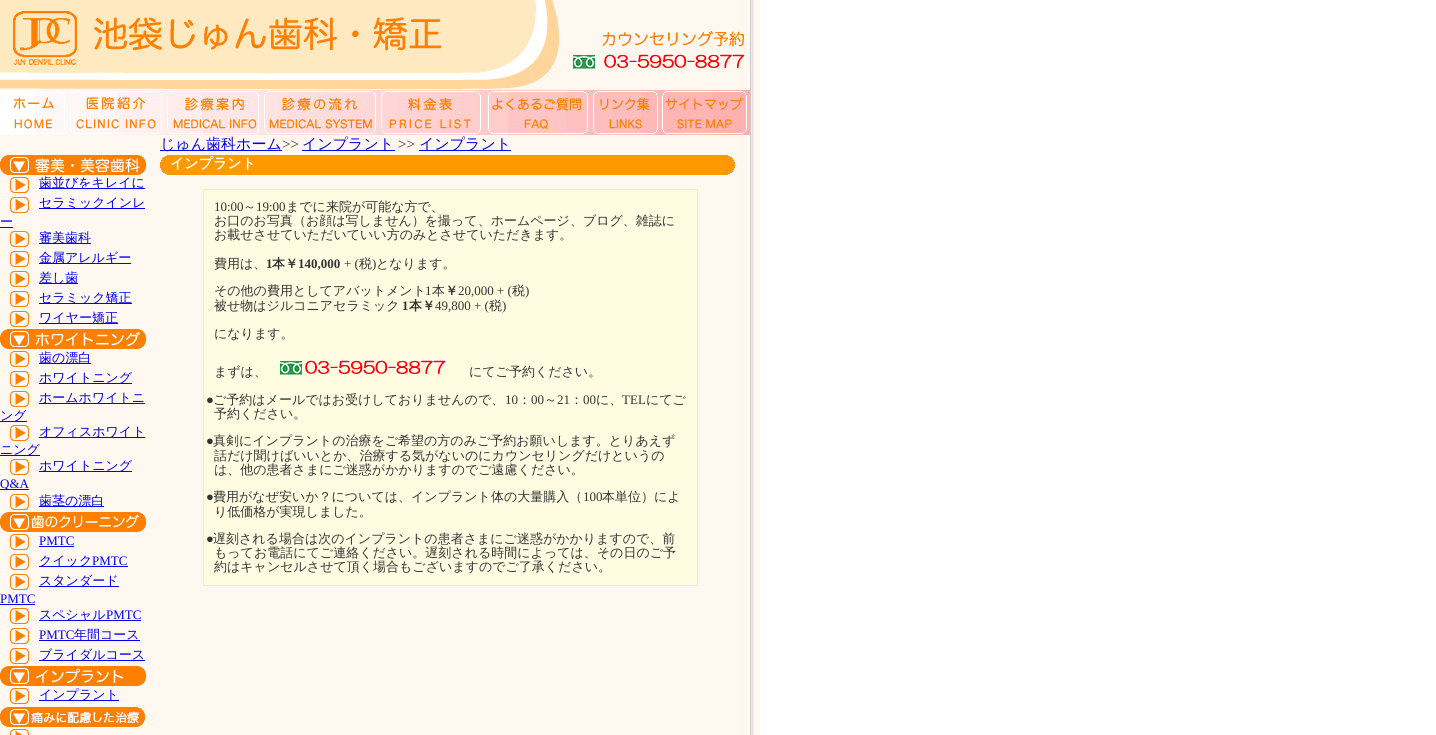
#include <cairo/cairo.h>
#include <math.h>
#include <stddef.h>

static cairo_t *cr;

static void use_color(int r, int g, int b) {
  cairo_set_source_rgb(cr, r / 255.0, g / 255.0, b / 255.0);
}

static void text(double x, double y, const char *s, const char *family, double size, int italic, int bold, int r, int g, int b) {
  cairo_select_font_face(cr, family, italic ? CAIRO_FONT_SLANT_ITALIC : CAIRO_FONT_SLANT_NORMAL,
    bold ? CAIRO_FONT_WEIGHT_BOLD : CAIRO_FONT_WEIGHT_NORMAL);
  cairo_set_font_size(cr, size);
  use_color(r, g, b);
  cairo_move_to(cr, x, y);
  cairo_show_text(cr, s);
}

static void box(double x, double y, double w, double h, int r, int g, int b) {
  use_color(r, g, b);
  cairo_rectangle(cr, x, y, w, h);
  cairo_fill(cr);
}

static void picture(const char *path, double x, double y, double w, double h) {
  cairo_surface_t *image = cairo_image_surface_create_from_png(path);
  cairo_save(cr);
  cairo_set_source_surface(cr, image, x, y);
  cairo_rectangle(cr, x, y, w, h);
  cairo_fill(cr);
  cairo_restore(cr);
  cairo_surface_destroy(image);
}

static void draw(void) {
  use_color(255, 255, 255);
  cairo_paint(cr);
  box(0, 0, 760, 735, 255, 248, 240);
  picture("img_01.png", 0, 0, 560, 89);
  picture("img_02.png", 573, 31, 172, 38);
  picture("img_03.png", 0, 90, 68, 45);
  picture("img_04.png", 68, 90, 97, 45);
  picture("img_05.png", 165, 90, 97, 45);
  picture("img_06.png", 262, 90, 116, 45);
  picture("img_07.png", 378, 90, 107, 45);
  picture("img_08.png", 485, 90, 105, 45);
  picture("img_09.png", 590, 90, 70, 45);
  picture("img_10.png", 660, 90, 90, 45);
  box(160, 150, 122, 1, 0, 0, 238);
  box(302, 150, 93, 1, 0, 0, 238);
  box(419, 150, 92, 1, 0, 0, 238);
  picture("img_11.png", 0, 155, 146, 20);
  picture("img_12.png", 10, 177, 19, 16);
  box(39, 188, 106, 1, 0, 0, 238);
  picture("img_12.png", 10, 197, 19, 16);
  box(39, 208, 106, 1, 0, 0, 238);
  box(0, 227, 13, 1, 0, 0, 238);
  picture("img_12.png", 10, 231, 19, 16);
  box(39, 243, 52, 1, 0, 0, 238);
  picture("img_12.png", 10, 251, 19, 16);
  box(39, 263, 92, 1, 0, 0, 238);
  picture("img_12.png", 10, 271, 19, 16);
  box(39, 283, 39, 1, 0, 0, 238);
  picture("img_12.png", 10, 291, 19, 16);
  box(39, 303, 93, 1, 0, 0, 238);
  picture("img_12.png", 10, 311, 19, 16);
  box(39, 323, 79, 1, 0, 0, 238);
  picture("img_13.png", 0, 329, 146, 20);
  picture("img_12.png", 10, 351, 19, 16);
  box(39, 363, 52, 1, 0, 0, 238);
  picture("img_12.png", 10, 371, 19, 16);
  box(39, 383, 93, 1, 0, 0, 238);
  picture("img_12.png", 10, 391, 19, 16);
  box(39, 403, 106, 1, 0, 0, 238);
  box(0, 421, 27, 1, 0, 0, 238);
  picture("img_12.png", 10, 425, 19, 16);
  box(39, 437, 106, 1, 0, 0, 238);
  box(0, 455, 40, 1, 0, 0, 238);
  picture("img_12.png", 10, 459, 19, 16);
  box(39, 471, 93, 1, 0, 0, 238);
  box(0, 489, 29, 1, 0, 0, 238);
  picture("img_12.png", 10, 494, 19, 16);
  box(39, 506, 65, 1, 0, 0, 238);
  picture("img_14.png", 0, 512, 146, 20);
  picture("img_12.png", 10, 534, 19, 16);
  box(39, 546, 35, 1, 0, 0, 238);
  picture("img_12.png", 10, 554, 19, 16);
  box(39, 566, 89, 1, 0, 0, 238);
  picture("img_12.png", 10, 574, 19, 16);
  box(39, 586, 80, 1, 0, 0, 238);
  box(0, 604, 35, 1, 0, 0, 238);
  picture("img_12.png", 10, 608, 19, 16);
  box(39, 620, 102, 1, 0, 0, 238);
  picture("img_12.png", 10, 628, 19, 16);
  box(39, 640, 101, 1, 0, 0, 238);
  picture("img_12.png", 10, 648, 19, 16);
  box(39, 660, 106, 1, 0, 0, 238);
  picture("img_15.png", 0, 666, 146, 20);
  picture("img_12.png", 10, 688, 19, 16);
  box(39, 700, 80, 1, 0, 0, 238);
  picture("img_16.png", 0, 707, 145, 20);
  picture("img_17.png", 10, 729, 19, 6);
  picture("img_18.png", 160, 155, 10, 20);
  box(170, 155, 555, 20, 255, 153, 0);
  picture("img_19.png", 725, 155, 10, 20);
  box(203, 189, 495, 397, 248, 240, 154);
  box(204, 190, 493, 395, 255, 252, 225);
  picture("img_20.png", 280, 360, 166, 15);
  picture("img_21.png", 750, 0, 4, 735);
  text(160, 149, "じゅん歯科ホーム", "WenQuanYi Zen Hei Medium", 15, 0, 0, 0, 0, 238);
  text(282, 149, ">>", "Liberation Serif", 15, 0, 0, 51, 51, 51);
  text(302, 149, "インプラント", "WenQuanYi Zen Hei Medium", 15, 0, 0, 0, 0, 238);
  text(398, 149, ">>", "Liberation Serif", 15, 0, 0, 51, 51, 51);
  text(419, 149, "インプラント", "WenQuanYi Zen Hei Medium", 15, 0, 0, 0, 0, 238);
  text(39, 187, "歯並びをキレイに", "WenQuanYi Zen Hei Medium", 13, 0, 0, 0, 0, 238);
  text(39, 207, "セラミックインレ", "WenQuanYi Zen Hei Medium", 13, 0, 0, 0, 0, 238);
  text(0, 226, "ー", "WenQuanYi Zen Hei Medium", 13, 0, 0, 0, 0, 238);
  text(39, 242, "審美歯科", "WenQuanYi Zen Hei Medium", 13, 0, 0, 0, 0, 238);
  text(39, 262, "金属アレルギー", "WenQuanYi Zen Hei Medium", 13, 0, 0, 0, 0, 238);
  text(39, 282, "差し歯", "WenQuanYi Zen Hei Medium", 13, 0, 0, 0, 0, 238);
  text(39, 302, "セラミック矯正", "WenQuanYi Zen Hei Medium", 13, 0, 0, 0, 0, 238);
  text(39, 322, "ワイヤー矯正", "WenQuanYi Zen Hei Medium", 13, 0, 0, 0, 0, 238);
  text(39, 362, "歯の漂白", "WenQuanYi Zen Hei Medium", 13, 0, 0, 0, 0, 238);
  text(39, 382, "ホワイトニング", "WenQuanYi Zen Hei Medium", 13, 0, 0, 0, 0, 238);
  text(39, 402, "ホームホワイトニ", "WenQuanYi Zen Hei Medium", 13, 0, 0, 0, 0, 238);
  text(0, 420, "ング", "WenQuanYi Zen Hei Medium", 13, 0, 0, 0, 0, 238);
  text(39, 436, "オフィスホワイト", "WenQuanYi Zen Hei Medium", 13, 0, 0, 0, 0, 238);
  text(0, 454, "ニング", "WenQuanYi Zen Hei Medium", 13, 0, 0, 0, 0, 238);
  text(39, 470, "ホワイトニング", "WenQuanYi Zen Hei Medium", 13, 0, 0, 0, 0, 238);
  text(0, 488, "Q&A", "Liberation Serif", 13, 0, 0, 0, 0, 238);
  text(39, 505, "歯茎の漂白", "WenQuanYi Zen Hei Medium", 13, 0, 0, 0, 0, 238);
  text(39, 545, "PMTC", "Liberation Serif", 13, 0, 0, 0, 0, 238);
  text(39, 565, "クイック", "WenQuanYi Zen Hei Medium", 13, 0, 0, 0, 0, 238);
  text(92, 565, "PMTC", "Liberation Serif", 13, 0, 0, 0, 0, 238);
  text(39, 585, "スタンダード", "WenQuanYi Zen Hei Medium", 13, 0, 0, 0, 0, 238);
  text(0, 603, "PMTC", "Liberation Serif", 13, 0, 0, 0, 0, 238);
  text(39, 619, "スペシャル", "WenQuanYi Zen Hei Medium", 13, 0, 0, 0, 0, 238);
  text(106, 619, "PMTC", "Liberation Serif", 13, 0, 0, 0, 0, 238);
  text(39, 639, "PMTC", "Liberation Serif", 13, 0, 0, 0, 0, 238);
  text(74, 639, "年間コース", "WenQuanYi Zen Hei Medium", 13, 0, 0, 0, 0, 238);
  text(39, 659, "ブライダルコース", "WenQuanYi Zen Hei Medium", 13, 0, 0, 0, 0, 238);
  text(39, 699, "インプラント", "WenQuanYi Zen Hei Medium", 13, 0, 0, 0, 0, 238);
  text(170, 168, "インプラント", "WenQuanYi Zen Hei", 14, 0, 1, 255, 255, 255);
  text(214, 211, "10:00", "Liberation Serif", 13, 0, 0, 51, 51, 51);
  text(243, 211, "～", "WenQuanYi Zen Hei Medium", 13, 0, 0, 51, 51, 51);
  text(256, 211, "19:00", "Liberation Serif", 13, 0, 0, 51, 51, 51);
  text(286, 211, "までに来院が可能な方で、", "WenQuanYi Zen Hei Medium", 13, 0, 0, 51, 51, 51);
  text(214, 225, "お口のお写真（お顔は写しません）を撮って、ホームページ、ブログ、雑誌に", "WenQuanYi Zen Hei Medium", 13, 0, 0, 51, 51, 51);
  text(214, 239, "お載せさせていただいていい方のみとさせていただきます。", "WenQuanYi Zen Hei Medium", 13, 0, 0, 51, 51, 51);
  text(214, 268, "費用は、", "WenQuanYi Zen Hei Medium", 13, 0, 0, 51, 51, 51);
  text(266, 268, "1", "Liberation Serif", 13, 0, 1, 51, 51, 51);
  text(272, 268, "本￥", "WenQuanYi Zen Hei", 13, 0, 1, 51, 51, 51);
  text(298, 268, "140,000", "Liberation Serif", 13, 0, 1, 51, 51, 51);
  text(344, 268, "+ (", "Liberation Serif", 13, 0, 0, 51, 51, 51);
  text(359, 268, "税", "WenQuanYi Zen Hei Medium", 13, 0, 0, 51, 51, 51);
  text(372, 268, ")", "Liberation Serif", 13, 0, 0, 51, 51, 51);
  text(376, 268, "となります。", "WenQuanYi Zen Hei Medium", 13, 0, 0, 51, 51, 51);
  text(214, 295, "その他の費用としてアバットメント", "WenQuanYi Zen Hei Medium", 13, 0, 0, 51, 51, 51);
  text(425, 295, "1", "Liberation Serif", 13, 0, 0, 51, 51, 51);
  text(432, 295, "本", "WenQuanYi Zen Hei Medium", 13, 0, 0, 51, 51, 51);
  text(445, 295, "￥", "WenQuanYi Zen Hei", 13, 0, 1, 51, 51, 51);
  text(458, 295, "20,000 + (", "Liberation Serif", 13, 0, 0, 51, 51, 51);
  text(512, 295, "税", "WenQuanYi Zen Hei Medium", 13, 0, 0, 51, 51, 51);
  text(525, 295, ")", "Liberation Serif", 13, 0, 0, 51, 51, 51);
  text(214, 310, "被せ物はジルコニアセラミック", "WenQuanYi Zen Hei Medium", 13, 0, 0, 51, 51, 51);
  text(402, 310, "1", "Liberation Serif", 13, 0, 1, 51, 51, 51);
  text(409, 310, "本￥", "WenQuanYi Zen Hei", 13, 0, 1, 51, 51, 51);
  text(435, 310, "49,800 + (", "Liberation Serif", 13, 0, 0, 51, 51, 51);
  text(489, 310, "税", "WenQuanYi Zen Hei Medium", 13, 0, 0, 51, 51, 51);
  text(502, 310, ")", "Liberation Serif", 13, 0, 0, 51, 51, 51);
  text(214, 338, "になります。", "WenQuanYi Zen Hei Medium", 13, 0, 0, 51, 51, 51);
  text(214, 376, "まずは、", "WenQuanYi Zen Hei Medium", 13, 0, 0, 51, 51, 51);
  text(469, 376, "にてご予約ください。", "WenQuanYi Zen Hei Medium", 13, 0, 0, 51, 51, 51);
  text(206, 404, "●", "Liberation Serif", 13, 0, 0, 51, 51, 51);
  text(213, 404, "ご予約はメールではお受けしておりませんので、", "WenQuanYi Zen Hei Medium", 13, 0, 0, 51, 51, 51);
  text(505, 404, "10", "Liberation Serif", 13, 0, 0, 51, 51, 51);
  text(518, 404, "：", "WenQuanYi Zen Hei Medium", 13, 0, 0, 51, 51, 51);
  text(531, 404, "00", "Liberation Serif", 13, 0, 0, 51, 51, 51);
  text(544, 404, "～", "WenQuanYi Zen Hei Medium", 13, 0, 0, 51, 51, 51);
  text(557, 404, "21", "Liberation Serif", 13, 0, 0, 51, 51, 51);
  text(570, 404, "：", "WenQuanYi Zen Hei Medium", 13, 0, 0, 51, 51, 51);
  text(583, 404, "00", "Liberation Serif", 13, 0, 0, 51, 51, 51);
  text(596, 404, "に、", "WenQuanYi Zen Hei Medium", 13, 0, 0, 51, 51, 51);
  text(622, 404, "TEL", "Liberation Serif", 13, 0, 0, 51, 51, 51);
  text(646, 404, "にてご", "WenQuanYi Zen Hei Medium", 13, 0, 0, 51, 51, 51);
  text(214, 418, "予約ください。", "WenQuanYi Zen Hei Medium", 13, 0, 0, 51, 51, 51);
  text(206, 445, "●", "Liberation Serif", 13, 0, 0, 51, 51, 51);
  text(213, 445, "真剣にインプラントの治療をご希望の方のみご予約お願いします。とりあえず", "WenQuanYi Zen Hei Medium", 13, 0, 0, 51, 51, 51);
  text(214, 460, "話だけ聞けばいいとか、治療する気がないのにカウンセリングだけというの", "WenQuanYi Zen Hei Medium", 13, 0, 0, 51, 51, 51);
  text(214, 474, "は、他の患者さまにご迷惑がかかりますのでご遠慮ください。", "WenQuanYi Zen Hei Medium", 13, 0, 0, 51, 51, 51);
  text(206, 501, "●", "Liberation Serif", 13, 0, 0, 51, 51, 51);
  text(213, 501, "費用がなぜ安いか？については、インプラント体の大量購入（", "WenQuanYi Zen Hei Medium", 13, 0, 0, 51, 51, 51);
  text(583, 501, "100", "Liberation Serif", 13, 0, 0, 51, 51, 51);
  text(602, 501, "本単位）によ", "WenQuanYi Zen Hei Medium", 13, 0, 0, 51, 51, 51);
  text(214, 516, "り低価格が実現しました。", "WenQuanYi Zen Hei Medium", 13, 0, 0, 51, 51, 51);
  text(206, 543, "●", "Liberation Serif", 13, 0, 0, 51, 51, 51);
  text(213, 543, "遅刻される場合は次のインプラントの患者さまにご迷惑がかかりますので、前", "WenQuanYi Zen Hei Medium", 13, 0, 0, 51, 51, 51);
  text(214, 557, "もってお電話にてご連絡ください。遅刻される時間によっては、その日のご予", "WenQuanYi Zen Hei Medium", 13, 0, 0, 51, 51, 51);
  text(214, 571, "約はキャンセルさせて頂く場合もございますのでご了承ください。", "WenQuanYi Zen Hei Medium", 13, 0, 0, 51, 51, 51);
}

int main(void) {
  cairo_surface_t *surface = cairo_image_surface_create(CAIRO_FORMAT_RGB24, 1436, 735);
  cr = cairo_create(surface);
  cairo_font_options_t *options = cairo_font_options_create();
  cairo_font_options_set_hint_metrics(options, CAIRO_HINT_METRICS_OFF);
  cairo_font_options_set_hint_style(options, CAIRO_HINT_STYLE_NONE);
  cairo_set_font_options(cr, options);
  cairo_set_miter_limit(cr, 4);
  draw();
  cairo_surface_write_to_png(surface, "out.png");
  cairo_font_options_destroy(options);
  cairo_destroy(cr);
  cairo_surface_destroy(surface);
  return 0;
}
